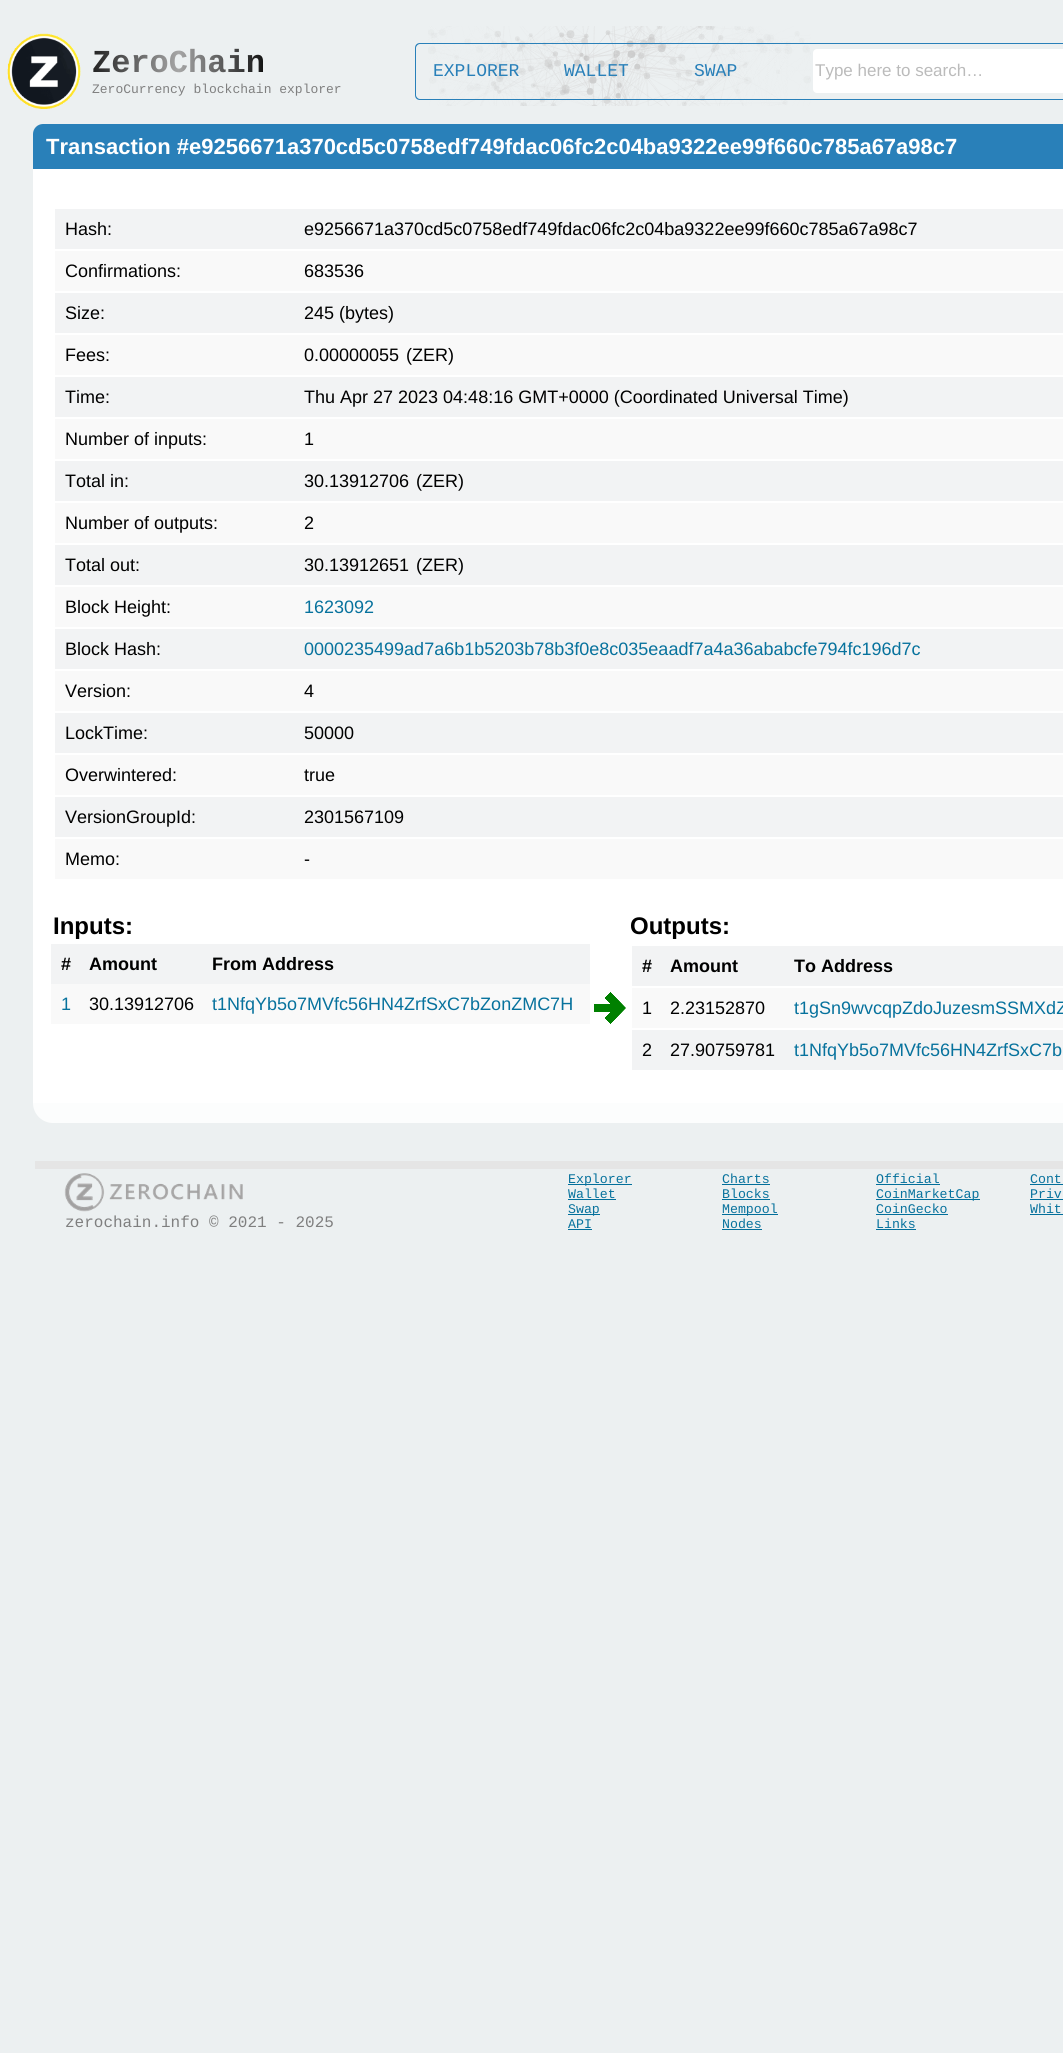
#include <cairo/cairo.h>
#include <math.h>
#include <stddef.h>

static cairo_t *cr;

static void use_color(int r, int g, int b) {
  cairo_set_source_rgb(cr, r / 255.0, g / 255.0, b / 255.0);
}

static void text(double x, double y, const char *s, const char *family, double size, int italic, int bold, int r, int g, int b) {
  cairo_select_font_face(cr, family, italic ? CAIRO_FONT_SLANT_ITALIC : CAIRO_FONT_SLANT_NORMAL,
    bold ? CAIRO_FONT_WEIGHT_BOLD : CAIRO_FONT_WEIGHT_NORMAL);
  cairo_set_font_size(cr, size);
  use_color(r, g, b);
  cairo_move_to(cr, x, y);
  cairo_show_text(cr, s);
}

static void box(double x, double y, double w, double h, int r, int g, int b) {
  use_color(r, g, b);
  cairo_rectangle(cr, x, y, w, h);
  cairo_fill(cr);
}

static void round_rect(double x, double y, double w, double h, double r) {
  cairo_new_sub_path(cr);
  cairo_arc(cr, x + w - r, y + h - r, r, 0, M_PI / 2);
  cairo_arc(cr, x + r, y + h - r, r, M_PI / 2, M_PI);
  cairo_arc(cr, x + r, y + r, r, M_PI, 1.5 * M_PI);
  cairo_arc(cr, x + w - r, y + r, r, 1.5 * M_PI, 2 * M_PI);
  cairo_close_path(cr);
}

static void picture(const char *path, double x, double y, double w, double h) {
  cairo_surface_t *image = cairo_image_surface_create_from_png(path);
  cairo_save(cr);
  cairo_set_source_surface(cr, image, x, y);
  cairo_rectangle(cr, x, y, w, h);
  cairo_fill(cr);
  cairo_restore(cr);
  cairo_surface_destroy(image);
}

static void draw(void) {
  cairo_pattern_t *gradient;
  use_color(236, 240, 241);
  cairo_paint(cr);
  picture("img_01.png", 428, 26, 383, 80);
  picture("img_02.png", 7, 33, 74, 76);
  use_color(41, 128, 185);
  cairo_set_fill_rule(cr, CAIRO_FILL_RULE_EVEN_ODD);
  cairo_new_path(cr);
  cairo_move_to(cr, 420, 43);
  cairo_line_to(cr, 536, 43);
  cairo_line_to(cr, 536, 100);
  cairo_line_to(cr, 420, 100);
  cairo_curve_to(cr, 417, 100, 415, 98, 415, 95);
  cairo_line_to(cr, 415, 48);
  cairo_curve_to(cr, 415, 45, 417, 43, 420, 43);
  cairo_close_path(cr);
  cairo_move_to(cr, 420, 44);
  cairo_line_to(cr, 536, 44);
  cairo_line_to(cr, 536, 99);
  cairo_line_to(cr, 420, 99);
  cairo_curve_to(cr, 418, 99, 416, 97, 416, 95);
  cairo_line_to(cr, 416, 48);
  cairo_curve_to(cr, 416, 46, 418, 44, 420, 44);
  cairo_close_path(cr);
  cairo_fill(cr);
  box(536, 43, 240, 1, 41, 128, 185);
  box(536, 99, 240, 1, 41, 128, 185);
  cairo_new_path(cr);
  cairo_move_to(cr, 776, 43);
  cairo_line_to(cr, 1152, 43);
  cairo_curve_to(cr, 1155, 43, 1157, 45, 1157, 48);
  cairo_line_to(cr, 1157, 95);
  cairo_curve_to(cr, 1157, 98, 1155, 100, 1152, 100);
  cairo_line_to(cr, 776, 100);
  cairo_close_path(cr);
  cairo_move_to(cr, 776, 44);
  cairo_line_to(cr, 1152, 44);
  cairo_curve_to(cr, 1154, 44, 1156, 46, 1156, 48);
  cairo_line_to(cr, 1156, 95);
  cairo_curve_to(cr, 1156, 97, 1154, 99, 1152, 99);
  cairo_line_to(cr, 776, 99);
  cairo_close_path(cr);
  cairo_fill(cr);
  use_color(255, 255, 255);
  round_rect(813, 49, 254, 44, 4);
  cairo_fill(cr);
  use_color(41, 128, 185);
  cairo_new_path(cr);
  cairo_move_to(cr, 43, 124);
  cairo_line_to(cr, 1063, 124);
  cairo_curve_to(cr, 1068.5, 124, 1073, 128.5, 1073, 134);
  cairo_line_to(cr, 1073, 169);
  cairo_line_to(cr, 33, 169);
  cairo_line_to(cr, 33, 134);
  cairo_curve_to(cr, 33, 128.5, 37.5, 124, 43, 124);
  cairo_close_path(cr);
  cairo_fill(cr);
  box(33, 169, 1030, 934, 255, 255, 255);
  box(55, 209, 1008, 40, 242, 243, 244);
  box(55, 251, 1008, 40, 249, 249, 249);
  box(55, 293, 1008, 40, 242, 243, 244);
  box(55, 335, 1008, 40, 249, 249, 249);
  box(55, 377, 1008, 40, 242, 243, 244);
  box(55, 419, 1008, 40, 249, 249, 249);
  box(55, 461, 1008, 40, 242, 243, 244);
  box(55, 503, 1008, 40, 249, 249, 249);
  box(55, 545, 1008, 40, 242, 243, 244);
  box(55, 587, 1008, 40, 249, 249, 249);
  box(55, 629, 1008, 40, 242, 243, 244);
  box(55, 671, 1008, 40, 249, 249, 249);
  box(55, 713, 1008, 40, 242, 243, 244);
  box(55, 755, 1008, 40, 249, 249, 249);
  box(55, 797, 1008, 40, 242, 243, 244);
  box(55, 839, 1008, 40, 249, 249, 249);
  box(51, 944, 539, 40, 242, 243, 244);
  box(51, 984, 539, 40, 249, 249, 249);
  picture("img_03.png", 594, 992, 32, 32);
  box(632, 946, 431, 40, 242, 243, 244);
  box(632, 988, 431, 40, 249, 249, 249);
  box(632, 1030, 431, 40, 242, 243, 244);
  use_color(252, 253, 253);
  cairo_new_path(cr);
  cairo_move_to(cr, 33, 1103);
  cairo_line_to(cr, 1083, 1103);
  cairo_curve_to(cr, 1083, 1114, 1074, 1123, 1063, 1123);
  cairo_line_to(cr, 53, 1123);
  cairo_curve_to(cr, 42, 1123, 33, 1114, 33, 1103);
  cairo_close_path(cr);
  cairo_fill(cr);
  box(35, 1161, 1028, 8, 229, 229, 229);
  box(568, 1184, 64, 1, 2, 111, 155);
  box(568, 1199, 48, 1, 2, 111, 155);
  box(568, 1214, 32, 1, 2, 111, 155);
  box(568, 1229, 24, 1, 2, 111, 155);
  box(722, 1184, 48, 1, 2, 111, 155);
  box(722, 1199, 48, 1, 2, 111, 155);
  box(722, 1214, 56, 1, 2, 111, 155);
  box(722, 1229, 40, 1, 2, 111, 155);
  box(876, 1184, 64, 1, 2, 111, 155);
  box(876, 1199, 104, 1, 2, 111, 155);
  box(876, 1214, 72, 1, 2, 111, 155);
  box(876, 1229, 40, 1, 2, 111, 155);
  box(1030, 1184, 33, 1, 2, 111, 155);
  box(1030, 1199, 33, 1, 2, 111, 155);
  box(1030, 1214, 33, 1, 2, 111, 155);
  picture("img_04.png", 64, 1173, 179, 39);
  cairo_select_font_face(cr, "Liberation Mono", CAIRO_FONT_SLANT_NORMAL, CAIRO_FONT_WEIGHT_BOLD);
  cairo_set_font_size(cr, 32);
  gradient = cairo_pattern_create_linear(92, 45, 265, 45);
  cairo_pattern_add_color_stop_rgba(gradient, 0, 0.133, 0.133, 0.133, 1);
  cairo_pattern_add_color_stop_rgba(gradient, 0.5, 0.651, 0.651, 0.651, 1);
  cairo_pattern_add_color_stop_rgba(gradient, 1, 0.067, 0.067, 0.067, 1);
  cairo_set_source(cr, gradient);
  cairo_pattern_destroy(gradient);
  cairo_move_to(cr, 92, 72);
  cairo_show_text(cr, "ZeroChain");
  text(92, 93, "ZeroCurrency blockchain explorer", "Liberation Mono", 13, 0, 0, 127, 127, 127);
  text(433, 76, "EXPLORER", "Liberation Mono", 18, 0, 0, 41, 128, 185);
  text(564, 76, "WALLET", "Liberation Mono", 18, 0, 0, 41, 128, 185);
  text(694, 76, "SWAP", "Liberation Mono", 18, 0, 0, 41, 128, 185);
  text(815, 76, "Type here to search…", "Liberation Sans", 17, 0, 0, 187, 187, 187);
  text(46, 154, "Transaction #e9256671a370cd5c0758edf749fdac06fc2c04ba9322ee99f660c785a67a98c7", "Liberation Sans", 22, 0, 1, 255, 255, 255);
  text(65, 235, "Hash:", "Liberation Sans", 18, 0, 0, 0, 0, 0);
  text(304, 235, "e9256671a370cd5c0758edf749fdac06fc2c04ba9322ee99f660c785a67a98c7", "Liberation Sans", 18, 0, 0, 0, 0, 0);
  text(65, 277, "Confirmations:", "Liberation Sans", 18, 0, 0, 0, 0, 0);
  text(304, 277, "683536", "Liberation Sans", 18, 0, 0, 0, 0, 0);
  text(65, 319, "Size:", "Liberation Sans", 18, 0, 0, 0, 0, 0);
  text(304, 319, "245 (bytes)", "Liberation Sans", 18, 0, 0, 0, 0, 0);
  text(65, 361, "Fees:", "Liberation Sans", 18, 0, 0, 0, 0, 0);
  text(304, 361, "0.00000055", "Liberation Sans", 18, 0, 0, 0, 0, 0);
  text(406, 361, "(ZER)", "Liberation Sans", 18, 0, 0, 0, 0, 0);
  text(65, 403, "Time:", "Liberation Sans", 18, 0, 0, 0, 0, 0);
  text(304, 403, "Thu Apr 27 2023 04:48:16 GMT+0000 (Coordinated Universal Time)", "Liberation Sans", 18, 0, 0, 0, 0, 0);
  text(65, 445, "Number of inputs:", "Liberation Sans", 18, 0, 0, 0, 0, 0);
  text(304, 445, "1", "Liberation Sans", 18, 0, 0, 0, 0, 0);
  text(65, 487, "Total in:", "Liberation Sans", 18, 0, 0, 0, 0, 0);
  text(304, 487, "30.13912706", "Liberation Sans", 18, 0, 0, 0, 0, 0);
  text(416, 487, "(ZER)", "Liberation Sans", 18, 0, 0, 0, 0, 0);
  text(65, 529, "Number of outputs:", "Liberation Sans", 18, 0, 0, 0, 0, 0);
  text(304, 529, "2", "Liberation Sans", 18, 0, 0, 0, 0, 0);
  text(65, 571, "Total out:", "Liberation Sans", 18, 0, 0, 0, 0, 0);
  text(304, 571, "30.13912651", "Liberation Sans", 18, 0, 0, 0, 0, 0);
  text(416, 571, "(ZER)", "Liberation Sans", 18, 0, 0, 0, 0, 0);
  text(65, 613, "Block Height:", "Liberation Sans", 18, 0, 0, 0, 0, 0);
  text(304, 613, "1623092", "Liberation Sans", 18, 0, 0, 7, 114, 157);
  text(65, 655, "Block Hash:", "Liberation Sans", 18, 0, 0, 0, 0, 0);
  text(304, 655, "0000235499ad7a6b1b5203b78b3f0e8c035eaadf7a4a36ababcfe794fc196d7c", "Liberation Sans", 18, 0, 0, 7, 114, 157);
  text(65, 697, "Version:", "Liberation Sans", 18, 0, 0, 0, 0, 0);
  text(304, 697, "4", "Liberation Sans", 18, 0, 0, 0, 0, 0);
  text(65, 739, "LockTime:", "Liberation Sans", 18, 0, 0, 0, 0, 0);
  text(304, 739, "50000", "Liberation Sans", 18, 0, 0, 0, 0, 0);
  text(65, 781, "Overwintered:", "Liberation Sans", 18, 0, 0, 0, 0, 0);
  text(304, 781, "true", "Liberation Sans", 18, 0, 0, 0, 0, 0);
  text(65, 823, "VersionGroupId:", "Liberation Sans", 18, 0, 0, 0, 0, 0);
  text(304, 823, "2301567109", "Liberation Sans", 18, 0, 0, 0, 0, 0);
  text(65, 865, "Memo:", "Liberation Sans", 18, 0, 0, 0, 0, 0);
  text(304, 865, "-", "Liberation Sans", 18, 0, 0, 0, 0, 0);
  text(53, 934, "Inputs:", "Liberation Sans", 24, 0, 1, 0, 0, 0);
  text(630, 934, "Outputs:", "Liberation Sans", 24, 0, 1, 0, 0, 0);
  text(61, 970, "#", "Liberation Sans", 18, 0, 1, 0, 0, 0);
  text(89, 970, "Amount", "Liberation Sans", 18, 0, 1, 0, 0, 0);
  text(212, 970, "From Address", "Liberation Sans", 18, 0, 1, 0, 0, 0);
  text(61, 1010, "1", "Liberation Sans", 18, 0, 0, 7, 114, 157);
  text(89, 1010, "30.13912706", "Liberation Sans", 18, 0, 0, 0, 0, 0);
  text(212, 1010, "t1NfqYb5o7MVfc56HN4ZrfSxC7bZonZMC7H", "Liberation Sans", 18, 0, 0, 7, 114, 157);
  text(642, 972, "#", "Liberation Sans", 18, 0, 1, 0, 0, 0);
  text(670, 972, "Amount", "Liberation Sans", 18, 0, 1, 0, 0, 0);
  text(794, 972, "To Address", "Liberation Sans", 18, 0, 1, 0, 0, 0);
  text(642, 1014, "1", "Liberation Sans", 18, 0, 0, 0, 0, 0);
  text(670, 1014, "2.23152870", "Liberation Sans", 18, 0, 0, 0, 0, 0);
  text(794, 1014, "t1gSn9wvcqpZdoJuzesmSSMXdZ", "Liberation Sans", 18, 0, 0, 7, 114, 157);
  text(642, 1056, "2", "Liberation Sans", 18, 0, 0, 0, 0, 0);
  text(670, 1056, "27.90759781", "Liberation Sans", 18, 0, 0, 0, 0, 0);
  text(794, 1056, "t1NfqYb5o7MVfc56HN4ZrfSxC7b", "Liberation Sans", 18, 0, 0, 7, 114, 157);
  text(568, 1183, "Explorer", "Liberation Mono", 13.25, 0, 0, 7, 114, 157);
  text(568, 1198, "Wallet", "Liberation Mono", 13.25, 0, 0, 7, 114, 157);
  text(568, 1213, "Swap", "Liberation Mono", 13.25, 0, 0, 7, 114, 157);
  text(568, 1228, "API", "Liberation Mono", 13.25, 0, 0, 7, 114, 157);
  text(722, 1183, "Charts", "Liberation Mono", 13.25, 0, 0, 7, 114, 157);
  text(722, 1198, "Blocks", "Liberation Mono", 13.25, 0, 0, 7, 114, 157);
  text(722, 1213, "Mempool", "Liberation Mono", 13.25, 0, 0, 7, 114, 157);
  text(722, 1228, "Nodes", "Liberation Mono", 13.25, 0, 0, 7, 114, 157);
  text(876, 1183, "Official", "Liberation Mono", 13.25, 0, 0, 7, 114, 157);
  text(876, 1198, "CoinMarketCap", "Liberation Mono", 13.25, 0, 0, 7, 114, 157);
  text(876, 1213, "CoinGecko", "Liberation Mono", 13.25, 0, 0, 7, 114, 157);
  text(876, 1228, "Links", "Liberation Mono", 13.25, 0, 0, 7, 114, 157);
  text(1030, 1183, "Cont", "Liberation Mono", 13.25, 0, 0, 7, 114, 157);
  text(1030, 1198, "Priv", "Liberation Mono", 13.25, 0, 0, 7, 114, 157);
  text(1030, 1213, "Whit", "Liberation Mono", 13.25, 0, 0, 7, 114, 157);
  text(65, 1227, "zerochain.info © 2021 - 2025", "Liberation Mono", 16, 0, 0, 127, 127, 127);
}

int main(void) {
  cairo_surface_t *surface = cairo_image_surface_create(CAIRO_FORMAT_RGB24, 1063, 2053);
  cr = cairo_create(surface);
  cairo_font_options_t *options = cairo_font_options_create();
  cairo_font_options_set_hint_metrics(options, CAIRO_HINT_METRICS_OFF);
  cairo_font_options_set_hint_style(options, CAIRO_HINT_STYLE_NONE);
  cairo_set_font_options(cr, options);
  cairo_set_miter_limit(cr, 4);
  draw();
  cairo_surface_write_to_png(surface, "out.png");
  cairo_font_options_destroy(options);
  cairo_destroy(cr);
  cairo_surface_destroy(surface);
  return 0;
}
